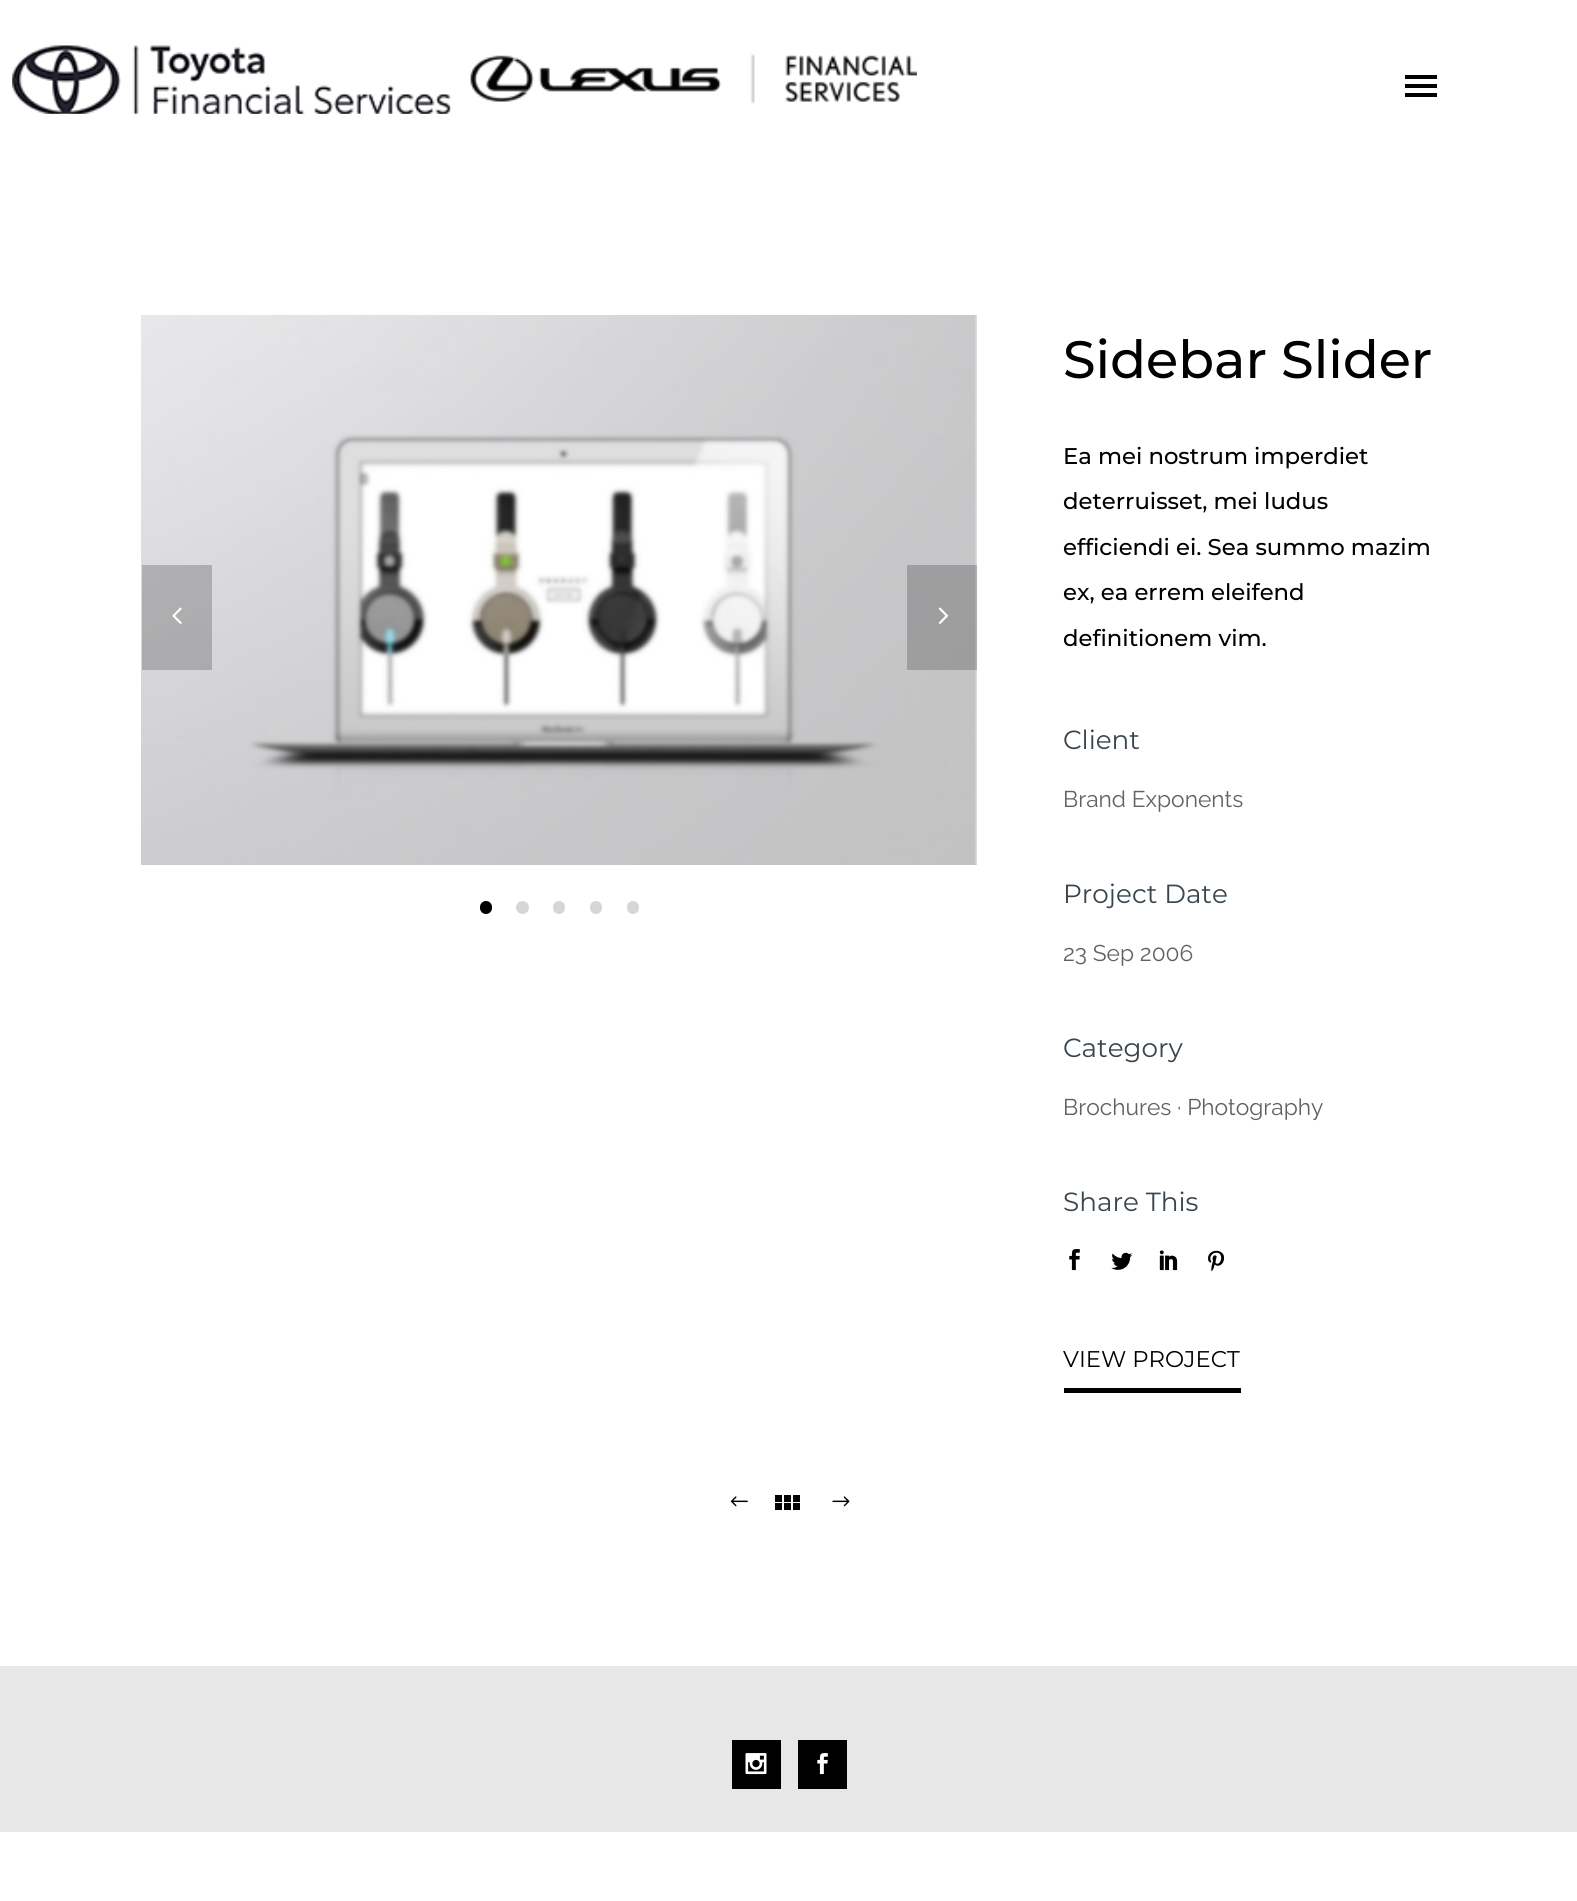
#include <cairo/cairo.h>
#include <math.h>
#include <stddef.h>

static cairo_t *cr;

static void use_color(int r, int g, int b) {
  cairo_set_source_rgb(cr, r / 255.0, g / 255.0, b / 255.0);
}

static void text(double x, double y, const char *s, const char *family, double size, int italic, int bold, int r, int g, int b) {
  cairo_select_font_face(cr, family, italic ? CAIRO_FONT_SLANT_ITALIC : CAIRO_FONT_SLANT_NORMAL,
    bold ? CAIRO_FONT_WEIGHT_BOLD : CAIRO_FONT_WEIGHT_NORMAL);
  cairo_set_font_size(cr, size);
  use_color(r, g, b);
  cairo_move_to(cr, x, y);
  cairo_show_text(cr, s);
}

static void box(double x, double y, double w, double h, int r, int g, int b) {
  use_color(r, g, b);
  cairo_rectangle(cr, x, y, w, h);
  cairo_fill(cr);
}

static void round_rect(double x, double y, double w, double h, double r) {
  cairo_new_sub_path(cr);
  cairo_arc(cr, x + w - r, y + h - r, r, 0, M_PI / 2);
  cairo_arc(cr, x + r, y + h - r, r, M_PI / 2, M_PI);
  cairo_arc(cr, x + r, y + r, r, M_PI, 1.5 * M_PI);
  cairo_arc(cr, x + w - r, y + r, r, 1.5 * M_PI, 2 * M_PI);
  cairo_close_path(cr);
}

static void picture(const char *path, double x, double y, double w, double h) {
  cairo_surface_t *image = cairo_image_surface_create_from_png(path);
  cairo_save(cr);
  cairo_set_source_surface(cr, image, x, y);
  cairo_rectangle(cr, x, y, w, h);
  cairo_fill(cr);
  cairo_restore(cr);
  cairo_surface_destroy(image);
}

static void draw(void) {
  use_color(255, 255, 255);
  cairo_paint(cr);
  picture("img_01.png", 12, 45, 905, 69);
  box(1405, 75, 32, 4, 0, 0, 0);
  box(1405, 84, 32, 4, 0, 0, 0);
  box(1405, 93, 32, 4, 0, 0, 0);
  picture("img_02.png", 141, 315, 835, 550);
  box(976, 315, 1, 550, 223, 219, 216);
  cairo_set_source_rgba(cr, 0, 0, 0, 0.2);
  cairo_rectangle(cr, 142, 565, 70, 105);
  cairo_fill(cr);
  picture("img_03.png", 172, 607, 10, 17);
  cairo_rectangle(cr, 907, 565, 70, 105);
  cairo_fill(cr);
  picture("img_04.png", 938, 607, 11, 17);
  use_color(0, 0, 0);
  round_rect(480, 901, 12, 13, 6);
  cairo_fill(cr);
  use_color(214, 214, 214);
  cairo_arc(cr, 522.5, 907.5, 6.5, 0, 2 * M_PI);
  cairo_fill(cr);
  round_rect(553, 901, 12, 13, 6);
  cairo_fill(cr);
  round_rect(590, 901, 12, 13, 6);
  cairo_fill(cr);
  round_rect(627, 901, 12, 13, 6);
  cairo_fill(cr);
  picture("img_05.png", 1069, 1249, 11, 22);
  picture("img_06.png", 1111, 1252, 22, 18);
  picture("img_07.png", 1159, 1250, 19, 21);
  picture("img_08.png", 1208, 1250, 16, 22);
  box(1064, 1388, 177, 5, 0, 0, 0);
  picture("img_09.png", 730, 1496, 18, 11);
  box(775, 1495, 7, 7, 0, 0, 0);
  box(784, 1495, 7, 7, 0, 0, 0);
  box(793, 1495, 7, 7, 0, 0, 0);
  box(775, 1503, 7, 7, 0, 0, 0);
  box(784, 1503, 7, 7, 0, 0, 0);
  box(793, 1503, 7, 7, 0, 0, 0);
  picture("img_10.png", 832, 1496, 18, 11);
  box(0, 1666, 1577, 166, 231, 231, 231);
  box(732, 1740, 49, 49, 0, 0, 0);
  picture("img_11.png", 745, 1753, 22, 22);
  box(798, 1740, 49, 49, 0, 0, 0);
  picture("img_12.png", 817, 1753, 11, 22);
  text(1063, 378, "Sidebar Slider", "Montserrat Medium", 52.5, 0, 0, 0, 0, 0);
  text(1063, 464, "Ea mei nostrum imperdiet", "Montserrat Medium", 22.75, 0, 0, 0, 0, 0);
  text(1063, 509, "deterruisset, mei ludus", "Montserrat Medium", 22.75, 0, 0, 0, 0, 0);
  text(1063, 555, "efficiendi ei. Sea summo mazim", "Montserrat Medium", 22.75, 0, 0, 0, 0, 0);
  text(1063, 600, "ex, ea errem eleifend", "Montserrat Medium", 22.75, 0, 0, 0, 0, 0);
  text(1063, 646, "definitionem vim.", "Montserrat Medium", 22.75, 0, 0, 0, 0, 0);
  text(1063, 749, "Client", "Montserrat", 26.25, 0, 0, 57, 69, 77);
  text(1063, 807, "Brand Exponents", "Raleway", 22.75, 0, 0, 95, 98, 99);
  text(1063, 903, "Project Date", "Montserrat", 26.25, 0, 0, 57, 69, 77);
  text(1063, 961, "23 Sep 2006", "Raleway", 22.75, 0, 0, 95, 98, 99);
  text(1063, 1057, "Category", "Montserrat", 26.25, 0, 0, 57, 69, 77);
  text(1063, 1115, "Brochures · Photography", "Raleway", 22.75, 0, 0, 95, 98, 99);
  text(1063, 1211, "Share This", "Montserrat", 26.25, 0, 0, 57, 69, 77);
  text(1063, 1367, "VIEW PROJECT", "Montserrat", 22.75, 0, 0, 0, 0, 0);
}

int main(void) {
  cairo_surface_t *surface = cairo_image_surface_create(CAIRO_FORMAT_RGB24, 1577, 1901);
  cr = cairo_create(surface);
  cairo_font_options_t *options = cairo_font_options_create();
  cairo_font_options_set_hint_metrics(options, CAIRO_HINT_METRICS_OFF);
  cairo_font_options_set_hint_style(options, CAIRO_HINT_STYLE_NONE);
  cairo_set_font_options(cr, options);
  cairo_set_miter_limit(cr, 4);
  draw();
  cairo_surface_write_to_png(surface, "out.png");
  cairo_font_options_destroy(options);
  cairo_destroy(cr);
  cairo_surface_destroy(surface);
  return 0;
}
